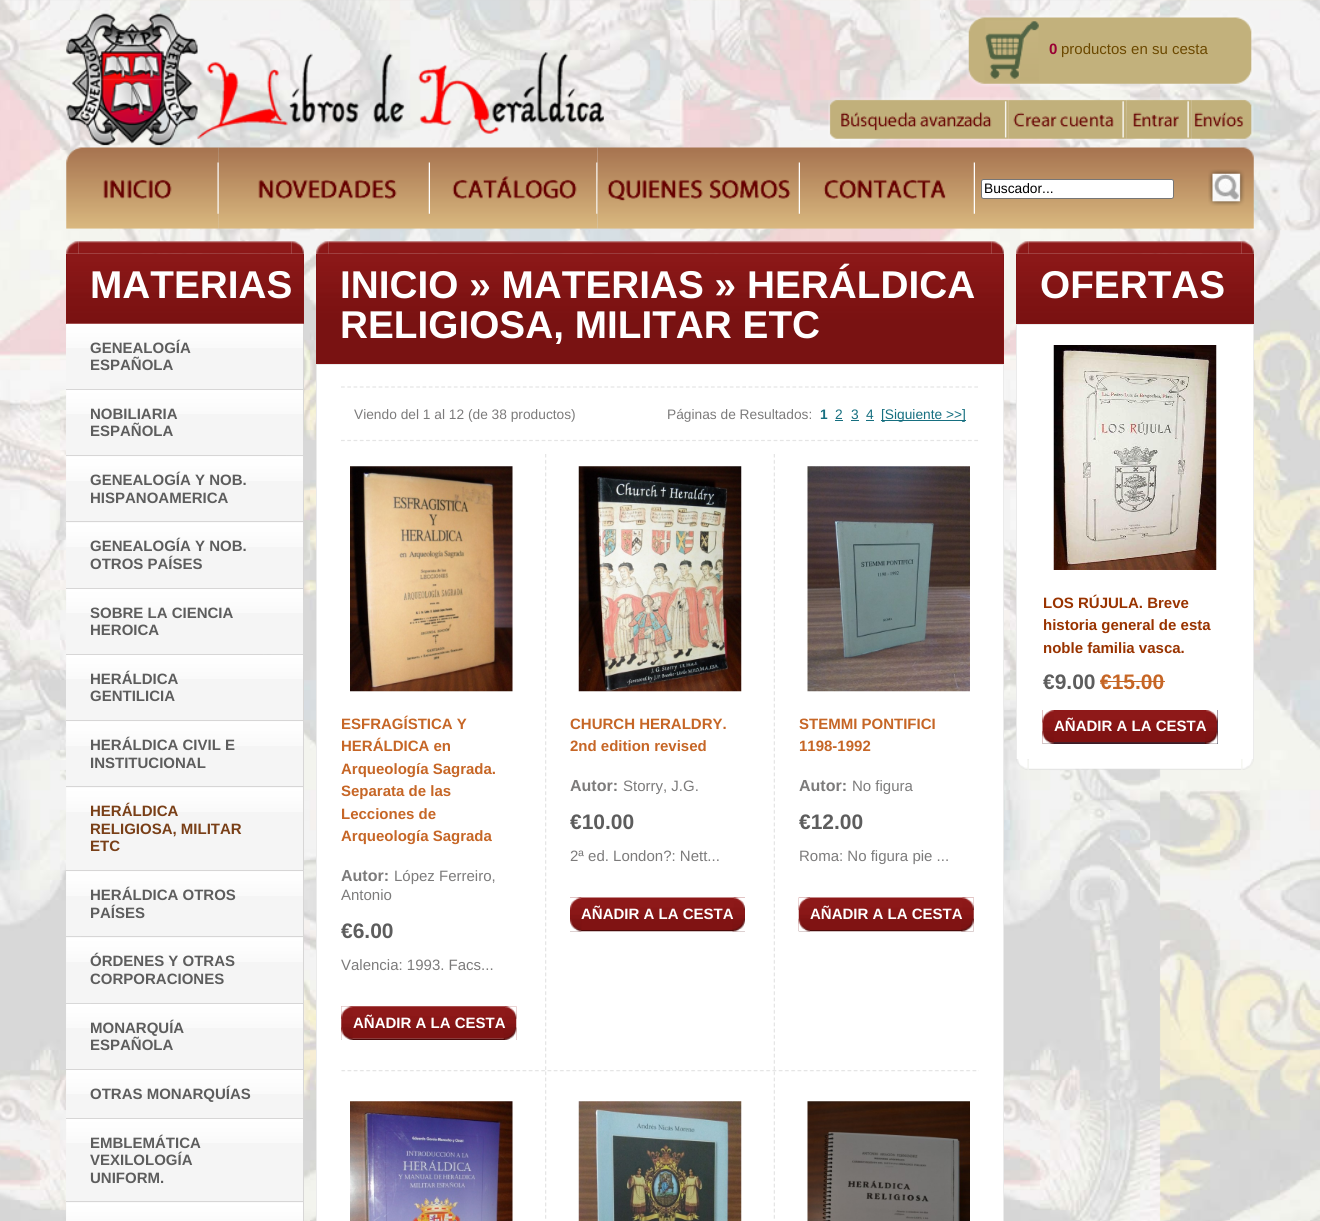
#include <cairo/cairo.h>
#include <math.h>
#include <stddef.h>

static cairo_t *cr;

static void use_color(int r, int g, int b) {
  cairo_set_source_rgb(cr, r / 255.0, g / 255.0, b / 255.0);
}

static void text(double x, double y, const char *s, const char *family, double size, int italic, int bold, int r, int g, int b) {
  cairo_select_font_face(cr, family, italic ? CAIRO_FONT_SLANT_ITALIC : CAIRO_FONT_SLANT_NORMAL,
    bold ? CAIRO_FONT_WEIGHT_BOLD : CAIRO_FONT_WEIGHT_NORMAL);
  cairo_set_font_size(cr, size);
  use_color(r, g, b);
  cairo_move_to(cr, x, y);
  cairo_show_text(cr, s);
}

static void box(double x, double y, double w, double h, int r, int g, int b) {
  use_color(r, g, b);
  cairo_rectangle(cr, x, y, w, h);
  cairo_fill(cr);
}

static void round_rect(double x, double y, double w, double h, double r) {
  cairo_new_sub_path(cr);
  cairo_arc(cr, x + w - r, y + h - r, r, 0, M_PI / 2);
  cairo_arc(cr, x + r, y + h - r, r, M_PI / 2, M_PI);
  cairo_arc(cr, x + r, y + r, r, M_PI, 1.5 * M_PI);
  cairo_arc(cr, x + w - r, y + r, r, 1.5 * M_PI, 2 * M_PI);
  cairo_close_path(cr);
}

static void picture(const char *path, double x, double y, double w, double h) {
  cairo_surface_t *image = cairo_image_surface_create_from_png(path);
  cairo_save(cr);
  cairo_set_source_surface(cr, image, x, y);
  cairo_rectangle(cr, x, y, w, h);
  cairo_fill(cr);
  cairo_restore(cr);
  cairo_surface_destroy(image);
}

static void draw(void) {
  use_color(255, 255, 255);
  cairo_paint(cr);
  picture("img_01.png", 0, 0, 1320, 1221);
  picture("img_02.png", 66, 13, 538, 133);
  picture("img_03.png", 966, 15, 288, 72);
  picture("img_04.png", 828, 97, 181, 44);
  picture("img_05.png", 1008, 97, 119, 44);
  picture("img_06.png", 1126, 97, 66, 44);
  picture("img_07.png", 1191, 97, 63, 44);
  picture("img_08.png", 66, 147, 153, 82);
  picture("img_09.png", 218, 147, 212, 82);
  picture("img_10.png", 430, 147, 168, 82);
  picture("img_11.png", 597, 147, 203, 82);
  picture("img_12.png", 800, 147, 175, 82);
  picture("img_13.png", 975, 147, 279, 82);
  use_color(255, 255, 255);
  round_rect(981.5, 179.5, 192, 19, 2);
  cairo_fill_preserve(cr);
  use_color(118, 118, 118);
  cairo_set_line_width(cr, 1);
  cairo_stroke(cr);
  picture("img_14.png", 1208, 169, 37, 37);
  picture("img_15.png", 66, 241, 13, 13);
  picture("img_16.png", 291, 241, 13, 13);
  picture("img_17.png", 78, 241, 214, 13);
  picture("img_18.png", 66, 253, 238, 70);
  box(303, 254, 1, 70, 131, 20, 20);
  box(66, 323, 238, 1, 131, 20, 20);
  box(66, 254, 1, 70, 131, 20, 20);
  box(66, 324, 237, 65, 245, 245, 245);
  picture("img_19.png", 66, 323, 238, 25);
  box(303, 324, 1, 65, 215, 214, 214);
  box(66, 390, 237, 65, 245, 245, 245);
  picture("img_20.png", 66, 390, 237, 24);
  box(66, 389, 238, 1, 215, 214, 214);
  box(303, 389, 1, 51, 215, 214, 214);
  box(66, 456, 237, 65, 245, 245, 245);
  picture("img_21.png", 66, 456, 237, 25);
  box(66, 455, 220, 1, 215, 214, 214);
  box(303, 485, 1, 36, 215, 214, 214);
  box(66, 522, 237, 66, 245, 245, 245);
  picture("img_22.png", 66, 522, 237, 25);
  box(66, 521, 238, 1, 215, 214, 214);
  box(303, 521, 1, 67, 215, 214, 214);
  box(66, 589, 237, 65, 245, 245, 245);
  picture("img_23.png", 66, 589, 237, 24);
  box(66, 588, 238, 1, 215, 214, 214);
  box(303, 588, 1, 12, 215, 214, 214);
  box(66, 655, 237, 65, 245, 245, 245);
  picture("img_20.png", 66, 655, 237, 24);
  box(66, 654, 197, 1, 215, 214, 214);
  box(303, 671, 1, 49, 215, 214, 214);
  box(66, 721, 237, 65, 245, 245, 245);
  picture("img_21.png", 66, 721, 237, 25);
  box(66, 720, 238, 1, 215, 214, 214);
  box(303, 720, 1, 66, 215, 214, 214);
  box(66, 787, 237, 83, 245, 245, 245);
  picture("img_22.png", 66, 787, 237, 25);
  box(66, 786, 238, 1, 215, 214, 214);
  box(303, 786, 1, 84, 215, 214, 214);
  box(66, 871, 237, 65, 245, 245, 245);
  picture("img_21.png", 66, 871, 237, 25);
  box(66, 870, 238, 1, 215, 214, 214);
  box(303, 870, 1, 66, 215, 214, 214);
  box(66, 937, 237, 66, 245, 245, 245);
  picture("img_22.png", 66, 937, 237, 25);
  box(81, 936, 223, 1, 215, 214, 214);
  box(303, 936, 1, 67, 215, 214, 214);
  box(66, 1004, 237, 65, 245, 245, 245);
  picture("img_23.png", 66, 1004, 237, 24);
  box(91, 1003, 213, 1, 215, 214, 214);
  box(303, 1003, 1, 66, 215, 214, 214);
  box(66, 1070, 237, 48, 245, 245, 245);
  picture("img_20.png", 66, 1070, 237, 24);
  box(66, 1069, 238, 1, 215, 214, 214);
  box(303, 1069, 1, 49, 215, 214, 214);
  box(66, 1119, 237, 82, 245, 245, 245);
  picture("img_23.png", 66, 1119, 237, 24);
  box(66, 1118, 238, 1, 215, 214, 214);
  box(303, 1170, 1, 31, 215, 214, 214);
  box(66, 1202, 237, 19, 245, 245, 245);
  picture("img_24.png", 66, 1202, 237, 19);
  box(66, 1201, 238, 1, 215, 214, 214);
  box(303, 1201, 1, 20, 215, 214, 214);
  picture("img_25.png", 316, 241, 13, 13);
  picture("img_26.png", 991, 241, 13, 13);
  picture("img_27.png", 328, 241, 664, 13);
  picture("img_28.png", 316, 253, 688, 110);
  box(1003, 254, 1, 110, 131, 20, 20);
  box(316, 363, 688, 1, 131, 20, 20);
  box(316, 254, 1, 110, 131, 20, 20);
  box(317, 365, 686, 856, 255, 255, 255);
  box(316, 364, 688, 1, 235, 235, 235);
  box(1003, 364, 1, 857, 235, 235, 235);
  box(316, 364, 1, 857, 235, 235, 235);
  cairo_new_path(cr);
  cairo_move_to(cr, 341, 387);
  cairo_line_to(cr, 979, 387);
  use_color(229, 229, 229);
  cairo_set_line_width(cr, 1.2);
  cairo_set_dash(cr, (double[]){3.75, 2.52}, 2, 0);
  cairo_stroke(cr);
  cairo_new_path(cr);
  cairo_move_to(cr, 341, 440.5);
  cairo_line_to(cr, 979, 440.5);
  cairo_stroke(cr);
  box(835, 420, 8, 1, 22, 111, 128);
  box(851, 420, 8, 1, 22, 111, 128);
  box(866, 420, 8, 1, 22, 111, 128);
  box(881, 420, 85, 1, 22, 111, 128);
  picture("img_29.png", 350, 466, 163, 226);
  picture("img_30.png", 341, 1006, 176, 33);
  picture("img_31.png", 341, 1038, 176, 2);
  picture("img_32.png", 341, 1006, 12, 13);
  picture("img_33.png", 505, 1006, 12, 13);
  picture("img_34.png", 341, 1027, 12, 13);
  picture("img_35.png", 503, 1027, 14, 13);
  picture("img_36.png", 545, 454, 2, 616);
  picture("img_37.png", 578, 466, 164, 226);
  picture("img_38.png", 570, 897, 175, 33);
  picture("img_39.png", 570, 930, 175, 2);
  picture("img_40.png", 570, 897, 12, 13);
  picture("img_41.png", 733, 897, 12, 13);
  picture("img_42.png", 570, 919, 12, 13);
  picture("img_43.png", 732, 918, 13, 14);
  picture("img_44.png", 773, 454, 2, 616);
  picture("img_45.png", 807, 466, 163, 226);
  picture("img_46.png", 798, 897, 176, 33);
  picture("img_47.png", 798, 930, 176, 2);
  picture("img_48.png", 798, 897, 12, 13);
  picture("img_49.png", 962, 897, 12, 13);
  picture("img_50.png", 798, 918, 12, 14);
  picture("img_51.png", 961, 918, 13, 14);
  picture("img_52.png", 341, 1070, 638, 2);
  picture("img_53.png", 350, 1101, 163, 120);
  picture("img_54.png", 545, 1071, 2, 148);
  picture("img_55.png", 578, 1101, 164, 120);
  picture("img_56.png", 773, 1071, 2, 148);
  picture("img_57.png", 807, 1101, 163, 120);
  picture("img_58.png", 1016, 241, 13, 13);
  picture("img_59.png", 1241, 241, 13, 13);
  picture("img_60.png", 1028, 241, 214, 13);
  picture("img_61.png", 1016, 253, 238, 70);
  box(1253, 254, 1, 70, 131, 20, 20);
  box(1016, 323, 238, 1, 131, 20, 20);
  box(1016, 254, 1, 70, 131, 20, 20);
  box(1017, 325, 236, 434, 255, 255, 255);
  box(1016, 324, 238, 1, 235, 235, 235);
  box(1253, 324, 1, 435, 235, 235, 235);
  box(1016, 324, 1, 435, 235, 235, 235);
  picture("img_62.png", 1053, 345, 164, 225);
  box(1100, 681, 65, 1, 198, 102, 38);
  box(1043, 710, 175, 34, 18, 87, 124);
  picture("img_63.png", 1042, 710, 176, 33);
  picture("img_64.png", 1042, 742, 176, 2);
  picture("img_65.png", 1042, 710, 12, 13);
  picture("img_66.png", 1206, 710, 12, 13);
  picture("img_67.png", 1042, 731, 12, 13);
  picture("img_68.png", 1205, 731, 13, 13);
  picture("img_69.png", 1016, 759, 12, 11);
  picture("img_70.png", 1242, 759, 12, 11);
  picture("img_71.png", 1028, 759, 214, 11);
  text(1049, 54, "0", "Liberation Sans", 15, 0, 1, 153, 0, 51);
  text(1061, 54, "productos en su cesta", "Liberation Sans", 15, 0, 0, 108, 73, 0);
  text(984, 193, "Buscador...", "Liberation Sans", 13.75, 0, 0, 0, 0, 0);
  text(90, 298, "MATERIAS", "Liberation Sans", 38.75, 0, 1, 255, 255, 255);
  text(90, 353, "GENEALOGÍA", "Liberation Sans", 15, 0, 1, 93, 93, 93);
  text(90, 370, "ESPAÑOLA", "Liberation Sans", 15, 0, 1, 93, 93, 93);
  text(90, 419, "NOBILIARIA", "Liberation Sans", 15, 0, 1, 93, 93, 93);
  text(90, 436, "ESPAÑOLA", "Liberation Sans", 15, 0, 1, 93, 93, 93);
  text(90, 485, "GENEALOGÍA Y NOB.", "Liberation Sans", 15, 0, 1, 93, 93, 93);
  text(90, 503, "HISPANOAMERICA", "Liberation Sans", 15, 0, 1, 93, 93, 93);
  text(90, 551, "GENEALOGÍA Y NOB.", "Liberation Sans", 15, 0, 1, 93, 93, 93);
  text(90, 569, "OTROS PAÍSES", "Liberation Sans", 15, 0, 1, 93, 93, 93);
  text(90, 618, "SOBRE LA CIENCIA", "Liberation Sans", 15, 0, 1, 93, 93, 93);
  text(90, 635, "HEROICA", "Liberation Sans", 15, 0, 1, 93, 93, 93);
  text(90, 684, "HERÁLDICA", "Liberation Sans", 15, 0, 1, 93, 93, 93);
  text(90, 701, "GENTILICIA", "Liberation Sans", 15, 0, 1, 93, 93, 93);
  text(90, 750, "HERÁLDICA CIVIL E", "Liberation Sans", 15, 0, 1, 93, 93, 93);
  text(90, 768, "INSTITUCIONAL", "Liberation Sans", 15, 0, 1, 93, 93, 93);
  text(90, 816, "HERÁLDICA", "Liberation Sans", 15, 0, 1, 121, 63, 23);
  text(90, 834, "RELIGIOSA, MILITAR", "Liberation Sans", 15, 0, 1, 121, 63, 23);
  text(90, 851, "ETC", "Liberation Sans", 15, 0, 1, 121, 63, 23);
  text(90, 900, "HERÁLDICA OTROS", "Liberation Sans", 15, 0, 1, 93, 93, 93);
  text(90, 918, "PAÍSES", "Liberation Sans", 15, 0, 1, 93, 93, 93);
  text(90, 966, "ÓRDENES Y OTRAS", "Liberation Sans", 15, 0, 1, 93, 93, 93);
  text(90, 984, "CORPORACIONES", "Liberation Sans", 15, 0, 1, 93, 93, 93);
  text(90, 1033, "MONARQUÍA", "Liberation Sans", 15, 0, 1, 93, 93, 93);
  text(90, 1050, "ESPAÑOLA", "Liberation Sans", 15, 0, 1, 93, 93, 93);
  text(90, 1099, "OTRAS MONARQUÍAS", "Liberation Sans", 15, 0, 1, 93, 93, 93);
  text(90, 1148, "EMBLEMÁTICA", "Liberation Sans", 15, 0, 1, 93, 93, 93);
  text(90, 1165, "VEXILOLOGÍA", "Liberation Sans", 15, 0, 1, 93, 93, 93);
  text(90, 1183, "UNIFORM.", "Liberation Sans", 15, 0, 1, 93, 93, 93);
  text(340, 298, "INICIO » MATERIAS » HERÁLDICA", "Liberation Sans", 38.75, 0, 1, 255, 255, 255);
  text(340, 338, "RELIGIOSA, MILITAR ETC", "Liberation Sans", 38.75, 0, 1, 255, 255, 255);
  text(354, 419, "Viendo del 1 al 12 (de 38 productos)", "Liberation Sans", 13.75, 0, 0, 124, 123, 123);
  text(667, 419, "Páginas de Resultados:", "Liberation Sans", 13.75, 0, 0, 124, 123, 123);
  text(820, 419, "1", "Liberation Sans", 13.75, 0, 1, 22, 111, 128);
  text(835, 419, "2", "Liberation Sans", 13.75, 0, 0, 22, 111, 128);
  text(851, 419, "3", "Liberation Sans", 13.75, 0, 0, 22, 111, 128);
  text(866, 419, "4", "Liberation Sans", 13.75, 0, 0, 22, 111, 128);
  text(881, 419, "[Siguiente >>]", "Liberation Sans", 13.75, 0, 0, 22, 111, 128);
  text(341, 729, "ESFRAGÍSTICA Y", "Liberation Sans", 15, 0, 1, 198, 102, 38);
  text(341, 751, "HERÁLDICA en", "Liberation Sans", 15, 0, 1, 198, 102, 38);
  text(341, 774, "Arqueología Sagrada.", "Liberation Sans", 15, 0, 1, 198, 102, 38);
  text(341, 796, "Separata de las", "Liberation Sans", 15, 0, 1, 198, 102, 38);
  text(341, 819, "Lecciones de", "Liberation Sans", 15, 0, 1, 198, 102, 38);
  text(341, 841, "Arqueología Sagrada", "Liberation Sans", 15, 0, 1, 198, 102, 38);
  text(341, 881, "Autor:", "Liberation Sans", 16, 0, 1, 124, 123, 123);
  text(394, 881, "López Ferreiro,", "Liberation Sans", 15, 0, 0, 124, 123, 123);
  text(341, 900, "Antonio", "Liberation Sans", 15, 0, 0, 124, 123, 123);
  text(341, 938, "€6.00", "Liberation Sans", 21, 0, 1, 93, 93, 93);
  text(341, 970, "Valencia: 1993. Facs...", "Liberation Sans", 15, 0, 0, 124, 123, 123);
  text(353, 1028, "AÑADIR A LA CESTA", "Liberation Sans", 15, 0, 1, 255, 255, 255);
  text(570, 729, "CHURCH HERALDRY.", "Liberation Sans", 15, 0, 1, 198, 102, 38);
  text(570, 751, "2nd edition revised", "Liberation Sans", 15, 0, 1, 198, 102, 38);
  text(570, 791, "Autor:", "Liberation Sans", 16, 0, 1, 124, 123, 123);
  text(623, 791, "Storry, J.G.", "Liberation Sans", 15, 0, 0, 124, 123, 123);
  text(570, 829, "€10.00", "Liberation Sans", 21, 0, 1, 93, 93, 93);
  text(570, 861, "2ª ed. London?: Nett...", "Liberation Sans", 15, 0, 0, 124, 123, 123);
  text(581, 919, "AÑADIR A LA CESTA", "Liberation Sans", 15, 0, 1, 255, 255, 255);
  text(799, 729, "STEMMI PONTIFICI", "Liberation Sans", 15, 0, 1, 198, 102, 38);
  text(799, 751, "1198-1992", "Liberation Sans", 15, 0, 1, 198, 102, 38);
  text(799, 791, "Autor:", "Liberation Sans", 16, 0, 1, 124, 123, 123);
  text(852, 791, "No figura", "Liberation Sans", 15, 0, 0, 124, 123, 123);
  text(799, 829, "€12.00", "Liberation Sans", 21, 0, 1, 93, 93, 93);
  text(799, 861, "Roma: No figura pie ...", "Liberation Sans", 15, 0, 0, 124, 123, 123);
  text(810, 919, "AÑADIR A LA CESTA", "Liberation Sans", 15, 0, 1, 255, 255, 255);
  text(1040, 298, "OFERTAS", "Liberation Sans", 38.75, 0, 1, 255, 255, 255);
  text(1043, 608, "LOS RÚJULA. Breve", "Liberation Sans", 15, 0, 1, 153, 51, 0);
  text(1043, 630, "historia general de esta", "Liberation Sans", 15, 0, 1, 153, 51, 0);
  text(1043, 653, "noble familia vasca.", "Liberation Sans", 15, 0, 1, 153, 51, 0);
  text(1043, 689, "€9.00", "Liberation Sans", 21, 0, 1, 93, 93, 93);
  text(1100, 689, "€15.00", "Liberation Sans", 21, 0, 1, 198, 102, 38);
  text(1054, 731, "AÑADIR A LA CESTA", "Liberation Sans", 15, 0, 1, 255, 255, 255);
}

int main(void) {
  cairo_surface_t *surface = cairo_image_surface_create(CAIRO_FORMAT_RGB24, 1320, 1221);
  cr = cairo_create(surface);
  cairo_font_options_t *options = cairo_font_options_create();
  cairo_font_options_set_hint_metrics(options, CAIRO_HINT_METRICS_OFF);
  cairo_font_options_set_hint_style(options, CAIRO_HINT_STYLE_NONE);
  cairo_set_font_options(cr, options);
  cairo_set_miter_limit(cr, 4);
  draw();
  cairo_surface_write_to_png(surface, "out.png");
  cairo_font_options_destroy(options);
  cairo_destroy(cr);
  cairo_surface_destroy(surface);
  return 0;
}
